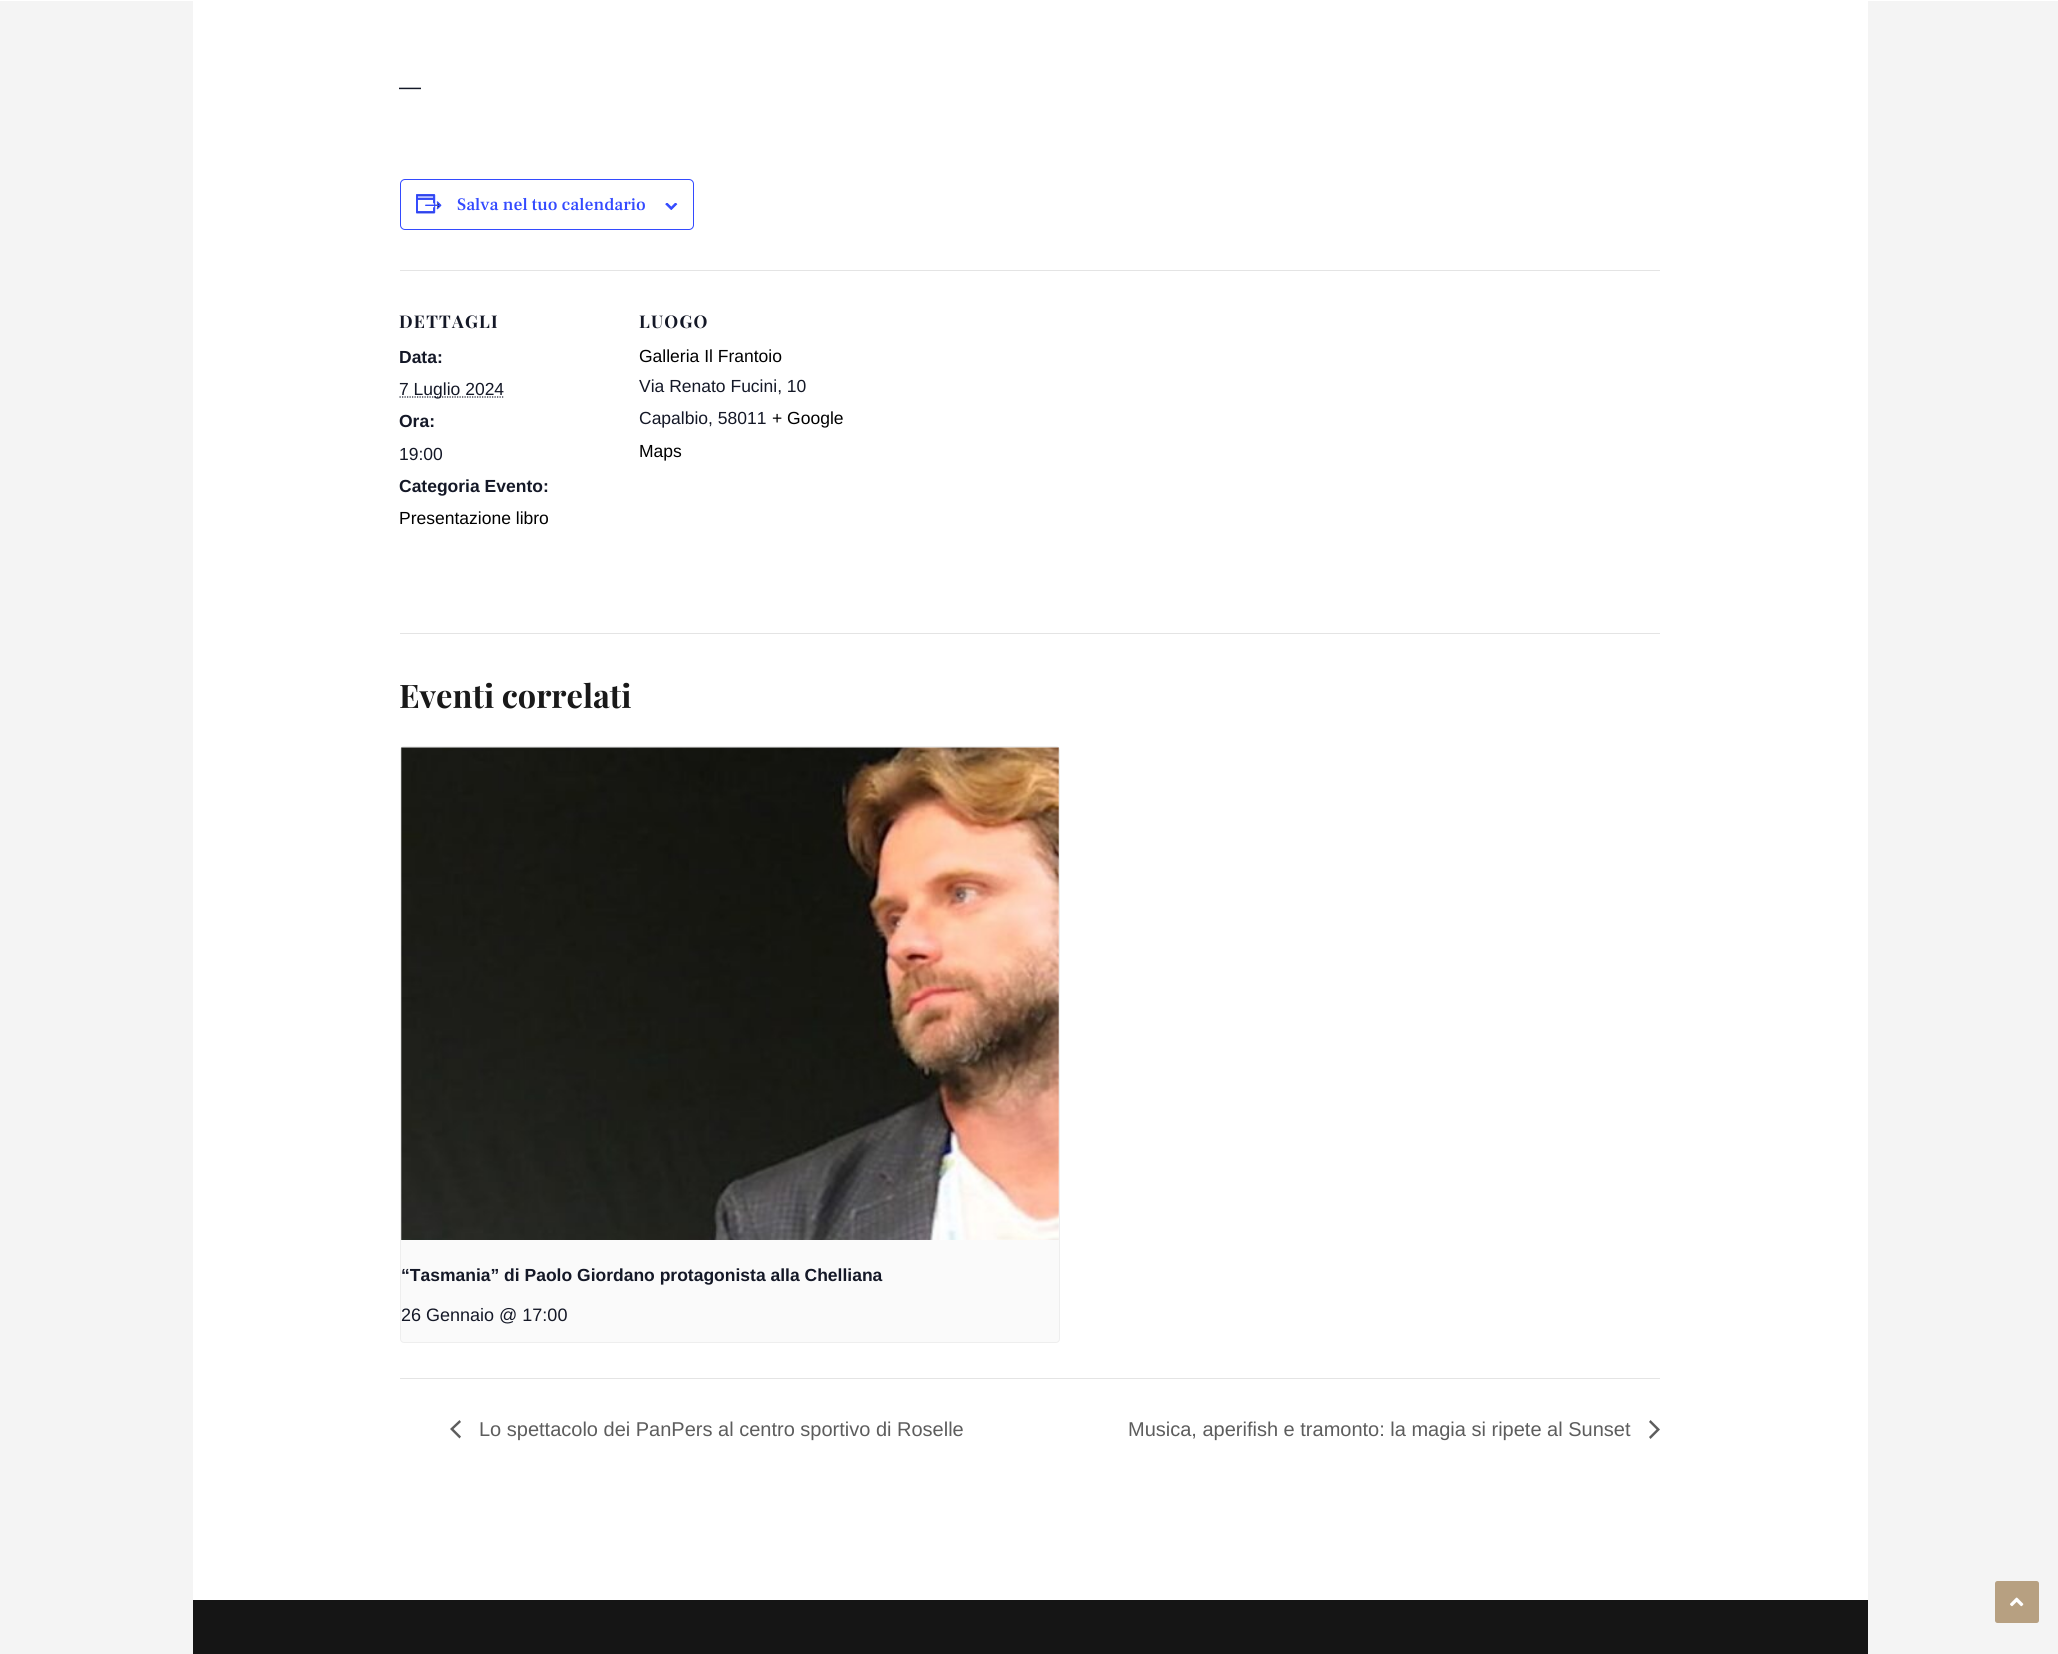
#include <cairo/cairo.h>
#include <math.h>
#include <stddef.h>

static cairo_t *cr;

static void use_color(int r, int g, int b) {
  cairo_set_source_rgb(cr, r / 255.0, g / 255.0, b / 255.0);
}

static void text(double x, double y, const char *s, const char *family, double size, int italic, int bold, int r, int g, int b) {
  cairo_select_font_face(cr, family, italic ? CAIRO_FONT_SLANT_ITALIC : CAIRO_FONT_SLANT_NORMAL,
    bold ? CAIRO_FONT_WEIGHT_BOLD : CAIRO_FONT_WEIGHT_NORMAL);
  cairo_set_font_size(cr, size);
  use_color(r, g, b);
  cairo_move_to(cr, x, y);
  cairo_show_text(cr, s);
}

static void spaced_text(double x, double y, const char *s, double letter, double word) {
  cairo_move_to(cr, x, y);
  while (*s) {
    char ch[5] = {0};
    int n = 0;
    do ch[n++] = *s++; while ((*s & 0xC0) == 0x80);
    cairo_show_text(cr, ch);
    cairo_rel_move_to(cr, letter + word * (*ch == ' '), 0);
  }
}

static void box(double x, double y, double w, double h, int r, int g, int b) {
  use_color(r, g, b);
  cairo_rectangle(cr, x, y, w, h);
  cairo_fill(cr);
}

static void round_rect(double x, double y, double w, double h, double r) {
  cairo_new_sub_path(cr);
  cairo_arc(cr, x + w - r, y + h - r, r, 0, M_PI / 2);
  cairo_arc(cr, x + r, y + h - r, r, M_PI / 2, M_PI);
  cairo_arc(cr, x + r, y + r, r, M_PI, 1.5 * M_PI);
  cairo_arc(cr, x + w - r, y + r, r, 1.5 * M_PI, 2 * M_PI);
  cairo_close_path(cr);
}

static void picture(const char *path, double x, double y, double w, double h) {
  cairo_surface_t *image = cairo_image_surface_create_from_png(path);
  cairo_save(cr);
  cairo_set_source_surface(cr, image, x, y);
  cairo_rectangle(cr, x, y, w, h);
  cairo_fill(cr);
  cairo_restore(cr);
  cairo_surface_destroy(image);
}

static void draw(void) {
  use_color(244, 244, 244);
  cairo_paint(cr);
  box(0, 0, 2058, 1, 255, 255, 255);
  box(193, 1, 1675, 1599, 255, 255, 255);
  round_rect(400.5, 179.5, 293, 50, 4.5);
  use_color(51, 74, 255);
  cairo_set_line_width(cr, 1);
  cairo_stroke(cr);
  picture("img_01.png", 416, 194, 26, 20);
  picture("img_02.png", 665, 203, 13, 7);
  box(400, 270, 1260, 1, 228, 228, 228);
  cairo_new_path(cr);
  cairo_move_to(cr, 399.5, 397);
  cairo_line_to(cr, 504.5, 397);
  use_color(20, 24, 39);
  cairo_set_line_width(cr, 1.2);
  cairo_set_dash(cr, (double[]){1.25, 1.25}, 2, 0);
  cairo_stroke(cr);
  box(400, 633, 1260, 1, 228, 228, 228);
  use_color(250, 250, 250);
  round_rect(400.5, 746.5, 659, 596, 3.5);
  cairo_fill_preserve(cr);
  use_color(238, 238, 238);
  cairo_set_line_width(cr, 1);
  cairo_set_dash(cr, NULL, 0, 0);
  cairo_stroke(cr);
  picture("img_03.png", 401, 747, 658, 493);
  box(400, 1378, 1260, 1, 228, 228, 228);
  use_color(93, 93, 93);
  cairo_new_path(cr);
  cairo_move_to(cr, 461, 1436.5);
  cairo_line_to(cr, 459.5, 1438.5);
  cairo_line_to(cr, 450, 1429);
  cairo_line_to(cr, 459.5, 1420);
  cairo_line_to(cr, 461, 1422);
  cairo_line_to(cr, 453.5, 1429);
  cairo_close_path(cr);
  cairo_fill(cr);
  cairo_new_path(cr);
  cairo_move_to(cr, 1649, 1422);
  cairo_line_to(cr, 1650.5, 1420);
  cairo_line_to(cr, 1660, 1429.5);
  cairo_line_to(cr, 1650.5, 1439);
  cairo_line_to(cr, 1649, 1437);
  cairo_line_to(cr, 1656.5, 1429.5);
  cairo_close_path(cr);
  cairo_fill(cr);
  box(193, 1600, 1675, 54, 21, 21, 21);
  use_color(183, 160, 129);
  round_rect(1995, 1581, 44, 42, 2.5);
  cairo_fill(cr);
  picture("img_04.png", 2010, 1597, 14, 10);
  text(399, 94, "—", "Liberation Sans", 22, 0, 0, 20, 24, 39);
  text(457, 210, "Salva nel tuo calendario", "Frank Ruhl Libre Medium", 17.5, 0, 0, 51, 74, 255);
  cairo_select_font_face(cr, "Playfair Display", CAIRO_FONT_SLANT_NORMAL, CAIRO_FONT_WEIGHT_BOLD);
  use_color(20, 24, 39);
  spaced_text(399, 328, "DETTAGLI", 1.25, 0);
  text(399, 363, "Data:", "Liberation Sans", 17.5, 0, 1, 20, 24, 39);
  text(399, 395, "7 Luglio 2024", "Liberation Sans", 17.5, 0, 0, 20, 24, 39);
  text(399, 427, "Ora:", "Liberation Sans", 17.5, 0, 1, 20, 24, 39);
  text(399, 460, "19:00", "Liberation Sans", 17.5, 0, 0, 20, 24, 39);
  text(399, 492, "Categoria Evento:", "Liberation Sans", 17.5, 0, 1, 20, 24, 39);
  text(399, 524, "Presentazione libro", "Liberation Sans", 17.5, 0, 0, 0, 0, 0);
  cairo_select_font_face(cr, "Playfair Display", CAIRO_FONT_SLANT_NORMAL, CAIRO_FONT_WEIGHT_BOLD);
  use_color(20, 24, 39);
  spaced_text(639, 328, "LUOGO", 1.25, 0);
  text(639, 362, "Galleria Il Frantoio", "Liberation Sans", 17.5, 0, 0, 0, 0, 0);
  text(639, 392, "Via Renato Fucini, 10", "Liberation Sans", 17.5, 0, 0, 20, 24, 39);
  text(639, 424, "Capalbio, 58011", "Liberation Sans", 17.5, 0, 0, 20, 24, 39);
  text(772, 424, "+ Google", "Liberation Sans", 17.5, 0, 0, 0, 0, 0);
  text(639, 457, "Maps", "Liberation Sans", 17.5, 0, 0, 0, 0, 0);
  text(399, 708, "Eventi correlati", "Playfair Display", 32.5, 0, 1, 25, 25, 25);
  text(401, 1281, "“Tasmania” di Paolo Giordano protagonista alla Chelliana", "Liberation Sans", 17.5, 0, 1, 20, 24, 39);
  text(401, 1321, "26 Gennaio @ 17:00", "Liberation Sans", 18, 0, 0, 20, 24, 39);
  text(479, 1436, "Lo spettacolo dei PanPers al centro sportivo di Roselle", "Liberation Sans", 20, 0, 0, 93, 93, 93);
  text(1128, 1436, "Musica, aperifish e tramonto: la magia si ripete al Sunset", "Liberation Sans", 20, 0, 0, 93, 93, 93);
}

int main(void) {
  cairo_surface_t *surface = cairo_image_surface_create(CAIRO_FORMAT_RGB24, 2058, 1654);
  cr = cairo_create(surface);
  cairo_font_options_t *options = cairo_font_options_create();
  cairo_font_options_set_hint_metrics(options, CAIRO_HINT_METRICS_OFF);
  cairo_font_options_set_hint_style(options, CAIRO_HINT_STYLE_NONE);
  cairo_set_font_options(cr, options);
  cairo_set_miter_limit(cr, 4);
  draw();
  cairo_surface_write_to_png(surface, "out.png");
  cairo_font_options_destroy(options);
  cairo_destroy(cr);
  cairo_surface_destroy(surface);
  return 0;
}
